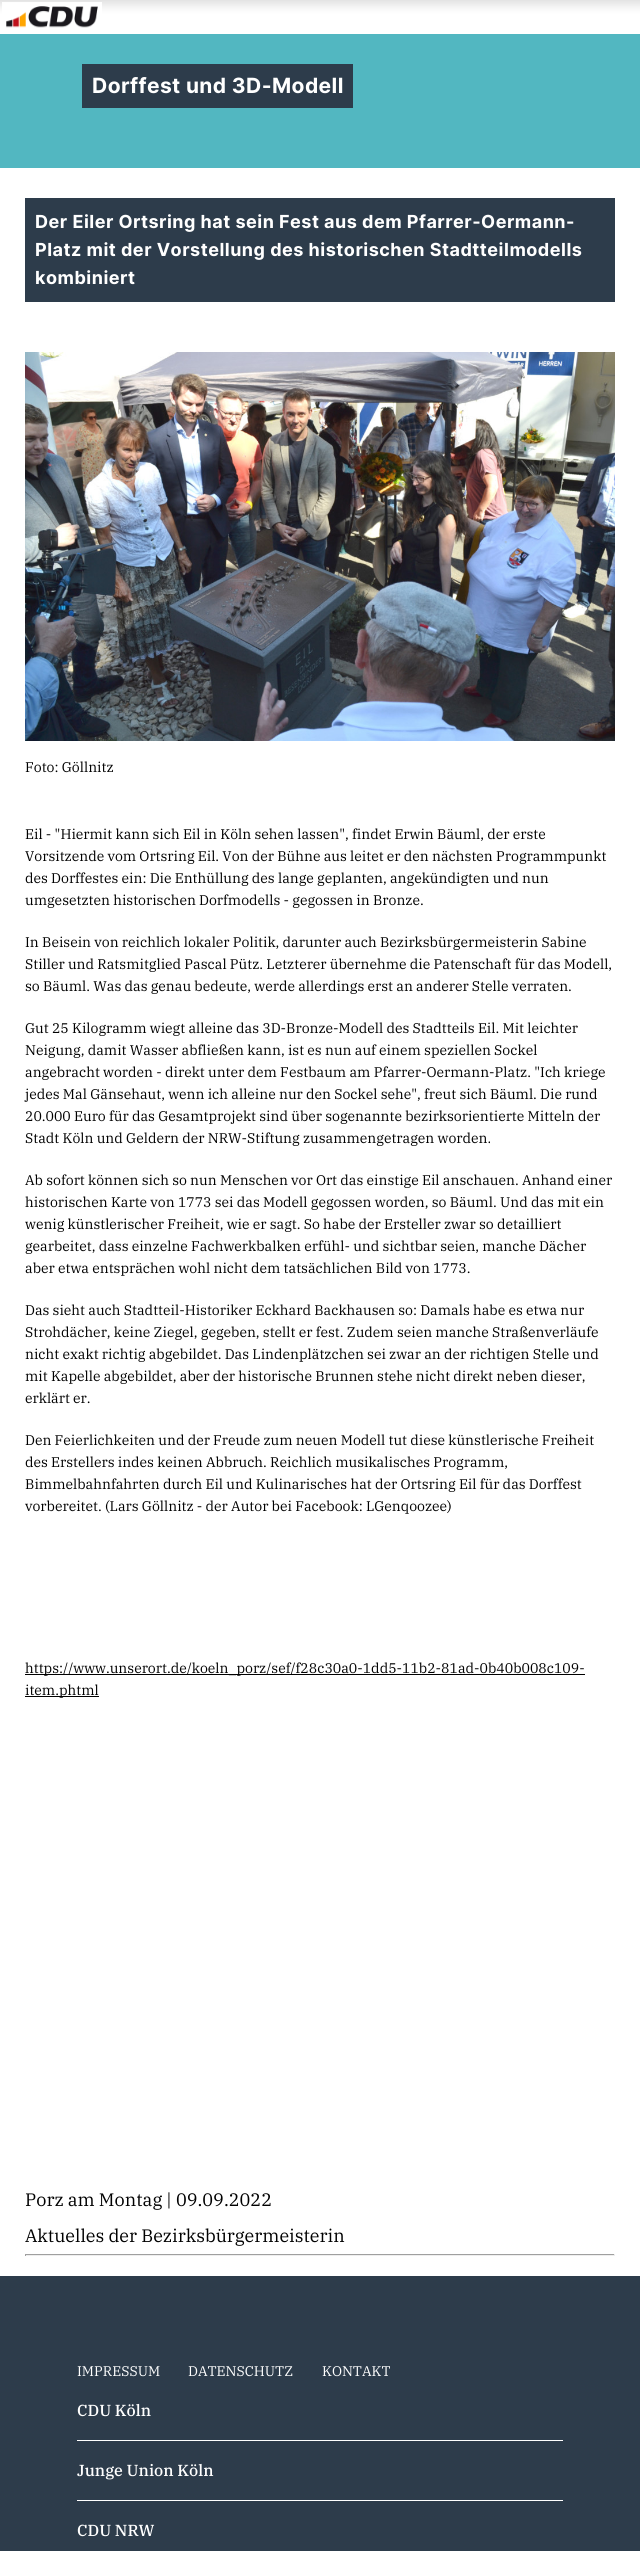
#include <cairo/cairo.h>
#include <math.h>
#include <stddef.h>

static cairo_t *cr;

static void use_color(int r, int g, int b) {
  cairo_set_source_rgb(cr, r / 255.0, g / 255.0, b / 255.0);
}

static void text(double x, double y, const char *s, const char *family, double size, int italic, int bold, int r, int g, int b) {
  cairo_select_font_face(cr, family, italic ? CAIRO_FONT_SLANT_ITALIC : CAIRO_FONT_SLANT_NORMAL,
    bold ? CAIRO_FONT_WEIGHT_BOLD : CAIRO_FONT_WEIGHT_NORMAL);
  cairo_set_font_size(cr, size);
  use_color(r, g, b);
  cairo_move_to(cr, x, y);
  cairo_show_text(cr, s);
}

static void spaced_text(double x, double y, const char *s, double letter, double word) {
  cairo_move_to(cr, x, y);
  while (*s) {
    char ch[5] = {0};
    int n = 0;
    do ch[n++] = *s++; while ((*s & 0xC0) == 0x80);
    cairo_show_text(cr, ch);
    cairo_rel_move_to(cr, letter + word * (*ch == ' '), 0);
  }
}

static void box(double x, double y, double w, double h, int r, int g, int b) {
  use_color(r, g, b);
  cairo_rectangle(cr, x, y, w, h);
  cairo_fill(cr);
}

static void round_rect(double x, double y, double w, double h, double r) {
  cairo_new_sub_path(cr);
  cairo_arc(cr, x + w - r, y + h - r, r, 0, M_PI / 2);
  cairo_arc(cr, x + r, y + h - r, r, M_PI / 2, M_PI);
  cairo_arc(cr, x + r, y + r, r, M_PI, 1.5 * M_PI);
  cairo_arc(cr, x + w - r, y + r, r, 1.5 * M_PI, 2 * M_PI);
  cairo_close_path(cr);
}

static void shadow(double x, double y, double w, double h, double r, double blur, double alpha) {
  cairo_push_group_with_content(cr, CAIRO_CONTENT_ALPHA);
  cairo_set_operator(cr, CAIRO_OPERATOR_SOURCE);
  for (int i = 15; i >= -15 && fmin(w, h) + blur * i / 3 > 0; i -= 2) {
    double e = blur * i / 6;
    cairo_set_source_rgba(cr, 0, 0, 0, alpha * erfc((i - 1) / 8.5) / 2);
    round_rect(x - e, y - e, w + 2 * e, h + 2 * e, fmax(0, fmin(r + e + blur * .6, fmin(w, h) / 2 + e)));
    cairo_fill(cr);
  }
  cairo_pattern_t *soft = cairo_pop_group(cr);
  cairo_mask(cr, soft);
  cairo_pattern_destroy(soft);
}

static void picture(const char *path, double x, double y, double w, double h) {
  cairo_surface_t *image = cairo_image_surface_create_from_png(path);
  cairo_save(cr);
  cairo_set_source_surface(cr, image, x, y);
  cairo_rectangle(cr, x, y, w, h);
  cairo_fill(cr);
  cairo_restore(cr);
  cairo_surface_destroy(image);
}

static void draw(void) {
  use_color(255, 255, 255);
  cairo_paint(cr);
  use_color(0, 0, 0);
  shadow(-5, -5, 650, 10, 0, 5, 0.13);
  picture("img_01.png", 2, 2, 100, 26);
  box(0, 34, 640, 134, 82, 183, 193);
  box(82, 64, 271, 44, 45, 60, 75);
  box(25, 198, 590, 104, 45, 60, 75);
  picture("img_02.png", 25, 352, 590, 389);
  box(25, 1674, 560, 1, 0, 0, 0);
  box(25, 1696, 74, 1, 0, 0, 0);
  box(25, 2254, 590, 1, 159, 159, 159);
  box(614, 2254, 1, 2, 238, 238, 238);
  box(25, 2255, 590, 1, 238, 238, 238);
  box(25, 2254, 1, 2, 159, 159, 159);
  box(0, 2276, 640, 275, 45, 60, 75);
  box(77, 2440, 486, 1, 255, 255, 255);
  box(77, 2500, 486, 1, 255, 255, 255);
  cairo_select_font_face(cr, "Inter", CAIRO_FONT_SLANT_NORMAL, CAIRO_FONT_WEIGHT_BOLD);
  cairo_set_font_size(cr, 21);
  spaced_text(92, 93, "Dorffest und 3D-Modell", 0.4, 0);
  cairo_set_font_size(cr, 18);
  spaced_text(35, 228, "Der Eiler Ortsring hat sein Fest aus dem Pfarrer-Oermann-", 0.5, 0);
  spaced_text(35, 256, "Platz mit der Vorstellung des historischen Stadtteilmodells", 0.5, 0);
  spaced_text(35, 284, "kombiniert", 0.5, 0);
  text(25, 772, "Foto: Göllnitz", "IBM Plex Serif", 14, 0, 0, 0, 0, 0);
  text(25, 839, "Eil - \"Hiermit kann sich Eil in Köln sehen lassen\", findet Erwin Bäuml, der erste", "IBM Plex Serif", 14, 0, 0, 0, 0, 0);
  text(25, 861, "Vorsitzende vom Ortsring Eil. Von der Bühne aus leitet er den nächsten Programmpunkt", "IBM Plex Serif", 14, 0, 0, 0, 0, 0);
  text(25, 883, "des Dorffestes ein: Die Enthüllung des lange geplanten, angekündigten und nun", "IBM Plex Serif", 14, 0, 0, 0, 0, 0);
  text(25, 905, "umgesetzten historischen Dorfmodells - gegossen in Bronze.", "IBM Plex Serif", 14, 0, 0, 0, 0, 0);
  text(25, 947, "In Beisein von reichlich lokaler Politik, darunter auch Bezirksbürgermeisterin Sabine", "IBM Plex Serif", 14, 0, 0, 0, 0, 0);
  text(25, 969, "Stiller und Ratsmitglied Pascal Pütz. Letzterer übernehme die Patenschaft für das Modell,", "IBM Plex Serif", 14, 0, 0, 0, 0, 0);
  text(25, 991, "so Bäuml. Was das genau bedeute, werde allerdings erst an anderer Stelle verraten.", "IBM Plex Serif", 14, 0, 0, 0, 0, 0);
  text(25, 1033, "Gut 25 Kilogramm wiegt alleine das 3D-Bronze-Modell des Stadtteils Eil. Mit leichter", "IBM Plex Serif", 14, 0, 0, 0, 0, 0);
  text(25, 1055, "Neigung, damit Wasser abfließen kann, ist es nun auf einem speziellen Sockel", "IBM Plex Serif", 14, 0, 0, 0, 0, 0);
  text(25, 1077, "angebracht worden - direkt unter dem Festbaum am Pfarrer-Oermann-Platz. \"Ich kriege", "IBM Plex Serif", 14, 0, 0, 0, 0, 0);
  text(25, 1099, "jedes Mal Gänsehaut, wenn ich alleine nur den Sockel sehe\", freut sich Bäuml. Die rund", "IBM Plex Serif", 14, 0, 0, 0, 0, 0);
  text(25, 1121, "20.000 Euro für das Gesamtprojekt sind über sogenannte bezirksorientierte Mitteln der", "IBM Plex Serif", 14, 0, 0, 0, 0, 0);
  text(25, 1143, "Stadt Köln und Geldern der NRW-Stiftung zusammengetragen worden.", "IBM Plex Serif", 14, 0, 0, 0, 0, 0);
  text(25, 1185, "Ab sofort können sich so nun Menschen vor Ort das einstige Eil anschauen. Anhand einer", "IBM Plex Serif", 14, 0, 0, 0, 0, 0);
  text(25, 1207, "historischen Karte von 1773 sei das Modell gegossen worden, so Bäuml. Und das mit ein", "IBM Plex Serif", 14, 0, 0, 0, 0, 0);
  text(25, 1229, "wenig künstlerischer Freiheit, wie er sagt. So habe der Ersteller zwar so detailliert", "IBM Plex Serif", 14, 0, 0, 0, 0, 0);
  text(25, 1251, "gearbeitet, dass einzelne Fachwerkbalken erfühl- und sichtbar seien, manche Dächer", "IBM Plex Serif", 14, 0, 0, 0, 0, 0);
  text(25, 1273, "aber etwa entsprächen wohl nicht dem tatsächlichen Bild von 1773.", "IBM Plex Serif", 14, 0, 0, 0, 0, 0);
  text(25, 1315, "Das sieht auch Stadtteil-Historiker Eckhard Backhausen so: Damals habe es etwa nur", "IBM Plex Serif", 14, 0, 0, 0, 0, 0);
  text(25, 1337, "Strohdächer, keine Ziegel, gegeben, stellt er fest. Zudem seien manche Straßenverläufe", "IBM Plex Serif", 14, 0, 0, 0, 0, 0);
  text(25, 1359, "nicht exakt richtig abgebildet. Das Lindenplätzchen sei zwar an der richtigen Stelle und", "IBM Plex Serif", 14, 0, 0, 0, 0, 0);
  text(25, 1381, "mit Kapelle abgebildet, aber der historische Brunnen stehe nicht direkt neben dieser,", "IBM Plex Serif", 14, 0, 0, 0, 0, 0);
  text(25, 1403, "erklärt er.", "IBM Plex Serif", 14, 0, 0, 0, 0, 0);
  text(25, 1445, "Den Feierlichkeiten und der Freude zum neuen Modell tut diese künstlerische Freiheit", "IBM Plex Serif", 14, 0, 0, 0, 0, 0);
  text(25, 1467, "des Erstellers indes keinen Abbruch. Reichlich musikalisches Programm,", "IBM Plex Serif", 14, 0, 0, 0, 0, 0);
  text(25, 1489, "Bimmelbahnfahrten durch Eil und Kulinarisches hat der Ortsring Eil für das Dorffest", "IBM Plex Serif", 14, 0, 0, 0, 0, 0);
  text(25, 1511, "vorbereitet. (Lars Göllnitz - der Autor bei Facebook: LGenqoozee)", "IBM Plex Serif", 14, 0, 0, 0, 0, 0);
  text(25, 1673, "https://www.unserort.de/koeln_porz/sef/f28c30a0-1dd5-11b2-81ad-0b40b008c109-", "IBM Plex Serif", 14, 0, 0, 0, 0, 0);
  text(25, 1695, "item.phtml", "IBM Plex Serif", 14, 0, 0, 0, 0, 0);
  text(25, 2206, "Porz am Montag | 09.09.2022", "IBM Plex Serif", 18, 0, 0, 0, 0, 0);
  text(25, 2242, "Aktuelles der Bezirksbürgermeisterin", "IBM Plex Serif", 18, 0, 0, 0, 0, 0);
  text(77, 2376, "IMPRESSUM", "IBM Plex Serif", 14, 0, 0, 255, 255, 255);
  text(188, 2376, "DATENSCHUTZ", "IBM Plex Serif", 14, 0, 0, 255, 255, 255);
  text(322, 2376, "KONTAKT", "IBM Plex Serif", 14, 0, 0, 255, 255, 255);
  text(77, 2416, "CDU Köln", "IBM Plex Serif Medium", 16, 0, 0, 255, 255, 255);
  text(77, 2476, "Junge Union Köln", "IBM Plex Serif Medium", 16, 0, 0, 255, 255, 255);
  text(77, 2536, "CDU NRW", "IBM Plex Serif Medium", 16, 0, 0, 255, 255, 255);
}

int main(void) {
  cairo_surface_t *surface = cairo_image_surface_create(CAIRO_FORMAT_RGB24, 640, 2551);
  cr = cairo_create(surface);
  cairo_font_options_t *options = cairo_font_options_create();
  cairo_font_options_set_hint_metrics(options, CAIRO_HINT_METRICS_OFF);
  cairo_font_options_set_hint_style(options, CAIRO_HINT_STYLE_NONE);
  cairo_set_font_options(cr, options);
  cairo_set_miter_limit(cr, 4);
  draw();
  cairo_surface_write_to_png(surface, "out.png");
  cairo_font_options_destroy(options);
  cairo_destroy(cr);
  cairo_surface_destroy(surface);
  return 0;
}
